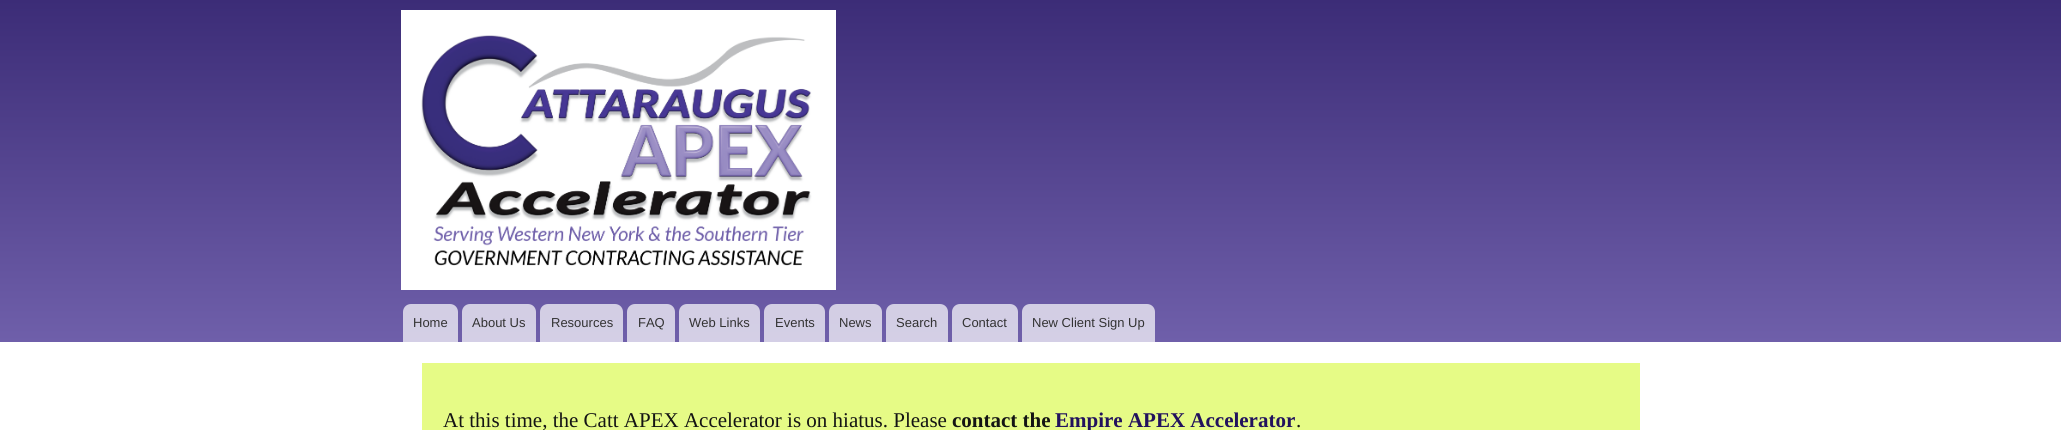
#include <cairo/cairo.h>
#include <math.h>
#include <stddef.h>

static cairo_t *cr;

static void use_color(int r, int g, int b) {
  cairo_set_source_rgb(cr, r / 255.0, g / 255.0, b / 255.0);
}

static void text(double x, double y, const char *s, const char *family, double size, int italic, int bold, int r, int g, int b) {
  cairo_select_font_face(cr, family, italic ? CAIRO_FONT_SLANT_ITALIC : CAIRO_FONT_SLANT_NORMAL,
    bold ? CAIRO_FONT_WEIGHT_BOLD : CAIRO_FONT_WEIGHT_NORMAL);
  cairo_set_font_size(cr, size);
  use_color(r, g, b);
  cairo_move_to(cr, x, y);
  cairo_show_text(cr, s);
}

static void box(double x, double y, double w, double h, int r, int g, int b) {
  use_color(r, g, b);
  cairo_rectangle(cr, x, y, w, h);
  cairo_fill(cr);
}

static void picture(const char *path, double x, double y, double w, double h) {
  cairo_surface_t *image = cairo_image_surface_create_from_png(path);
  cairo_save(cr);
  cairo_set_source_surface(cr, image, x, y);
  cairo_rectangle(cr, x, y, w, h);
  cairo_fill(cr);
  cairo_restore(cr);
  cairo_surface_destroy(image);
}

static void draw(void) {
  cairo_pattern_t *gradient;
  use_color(255, 255, 255);
  cairo_paint(cr);
  gradient = cairo_pattern_create_linear(1031, 0, 1031, 342);
  cairo_pattern_add_color_stop_rgba(gradient, 0, 0.235, 0.173, 0.467, 1);
  cairo_pattern_add_color_stop_rgba(gradient, 1, 0.435, 0.373, 0.667, 1);
  cairo_set_source(cr, gradient);
  cairo_pattern_destroy(gradient);
  cairo_rectangle(cr, 0, 0, 2061, 342);
  cairo_fill(cr);
  picture("img_01.png", 401, 10, 435, 280);
  cairo_set_source_rgba(cr, 1, 1, 1, 0.7);
  cairo_new_path(cr);
  cairo_move_to(cr, 411, 304);
  cairo_line_to(cr, 450, 304);
  cairo_curve_to(cr, 454.5, 304, 458, 307.5, 458, 312);
  cairo_line_to(cr, 458, 342);
  cairo_line_to(cr, 403, 342);
  cairo_line_to(cr, 403, 312);
  cairo_curve_to(cr, 403, 307.5, 406.5, 304, 411, 304);
  cairo_close_path(cr);
  cairo_fill(cr);
  cairo_new_path(cr);
  cairo_move_to(cr, 470, 304);
  cairo_line_to(cr, 528, 304);
  cairo_curve_to(cr, 532.5, 304, 536, 307.5, 536, 312);
  cairo_line_to(cr, 536, 342);
  cairo_line_to(cr, 462, 342);
  cairo_line_to(cr, 462, 312);
  cairo_curve_to(cr, 462, 307.5, 465.5, 304, 470, 304);
  cairo_close_path(cr);
  cairo_fill(cr);
  cairo_new_path(cr);
  cairo_move_to(cr, 548, 304);
  cairo_line_to(cr, 615, 304);
  cairo_curve_to(cr, 619.5, 304, 623, 307.5, 623, 312);
  cairo_line_to(cr, 623, 342);
  cairo_line_to(cr, 540, 342);
  cairo_line_to(cr, 540, 312);
  cairo_curve_to(cr, 540, 307.5, 543.5, 304, 548, 304);
  cairo_close_path(cr);
  cairo_fill(cr);
  cairo_new_path(cr);
  cairo_move_to(cr, 635, 304);
  cairo_line_to(cr, 667, 304);
  cairo_curve_to(cr, 671.5, 304, 675, 307.5, 675, 312);
  cairo_line_to(cr, 675, 342);
  cairo_line_to(cr, 627, 342);
  cairo_line_to(cr, 627, 312);
  cairo_curve_to(cr, 627, 307.5, 630.5, 304, 635, 304);
  cairo_close_path(cr);
  cairo_fill(cr);
  cairo_new_path(cr);
  cairo_move_to(cr, 687, 304);
  cairo_line_to(cr, 752, 304);
  cairo_curve_to(cr, 756.5, 304, 760, 307.5, 760, 312);
  cairo_line_to(cr, 760, 342);
  cairo_line_to(cr, 679, 342);
  cairo_line_to(cr, 679, 312);
  cairo_curve_to(cr, 679, 307.5, 682.5, 304, 687, 304);
  cairo_close_path(cr);
  cairo_fill(cr);
  cairo_new_path(cr);
  cairo_move_to(cr, 772, 304);
  cairo_line_to(cr, 817, 304);
  cairo_curve_to(cr, 821.5, 304, 825, 307.5, 825, 312);
  cairo_line_to(cr, 825, 342);
  cairo_line_to(cr, 764, 342);
  cairo_line_to(cr, 764, 312);
  cairo_curve_to(cr, 764, 307.5, 767.5, 304, 772, 304);
  cairo_close_path(cr);
  cairo_fill(cr);
  cairo_new_path(cr);
  cairo_move_to(cr, 837, 304);
  cairo_line_to(cr, 874, 304);
  cairo_curve_to(cr, 878.5, 304, 882, 307.5, 882, 312);
  cairo_line_to(cr, 882, 342);
  cairo_line_to(cr, 829, 342);
  cairo_line_to(cr, 829, 312);
  cairo_curve_to(cr, 829, 307.5, 832.5, 304, 837, 304);
  cairo_close_path(cr);
  cairo_fill(cr);
  cairo_new_path(cr);
  cairo_move_to(cr, 894, 304);
  cairo_line_to(cr, 940, 304);
  cairo_curve_to(cr, 944.5, 304, 948, 307.5, 948, 312);
  cairo_line_to(cr, 948, 342);
  cairo_line_to(cr, 886, 342);
  cairo_line_to(cr, 886, 312);
  cairo_curve_to(cr, 886, 307.5, 889.5, 304, 894, 304);
  cairo_close_path(cr);
  cairo_fill(cr);
  cairo_new_path(cr);
  cairo_move_to(cr, 960, 304);
  cairo_line_to(cr, 1010, 304);
  cairo_curve_to(cr, 1014.5, 304, 1018, 307.5, 1018, 312);
  cairo_line_to(cr, 1018, 342);
  cairo_line_to(cr, 952, 342);
  cairo_line_to(cr, 952, 312);
  cairo_curve_to(cr, 952, 307.5, 955.5, 304, 960, 304);
  cairo_close_path(cr);
  cairo_fill(cr);
  cairo_new_path(cr);
  cairo_move_to(cr, 1030, 304);
  cairo_line_to(cr, 1147, 304);
  cairo_curve_to(cr, 1151.5, 304, 1155, 307.5, 1155, 312);
  cairo_line_to(cr, 1155, 342);
  cairo_line_to(cr, 1022, 342);
  cairo_line_to(cr, 1022, 312);
  cairo_curve_to(cr, 1022, 307.5, 1025.5, 304, 1030, 304);
  cairo_close_path(cr);
  cairo_fill(cr);
  box(422, 363, 1218, 67, 230, 251, 134);
  text(413, 327, "Home", "Liberation Sans", 13, 0, 0, 51, 51, 51);
  text(472, 327, "About Us", "Liberation Sans", 13, 0, 0, 51, 51, 51);
  text(551, 327, "Resources", "Liberation Sans", 13, 0, 0, 51, 51, 51);
  text(638, 327, "FAQ", "Liberation Sans", 13, 0, 0, 51, 51, 51);
  text(689, 327, "Web Links", "Liberation Sans", 13, 0, 0, 51, 51, 51);
  text(775, 327, "Events", "Liberation Sans", 13, 0, 0, 51, 51, 51);
  text(839, 327, "News", "Liberation Sans", 13, 0, 0, 51, 51, 51);
  text(896, 327, "Search", "Liberation Sans", 13, 0, 0, 51, 51, 51);
  text(962, 327, "Contact", "Liberation Sans", 13, 0, 0, 51, 51, 51);
  text(1032, 327, "New Client Sign Up", "Liberation Sans", 13, 0, 0, 51, 51, 51);
  text(443, 427, "At this time, the Catt APEX Accelerator is on hiatus. Please", "Liberation Serif", 21, 0, 0, 20, 20, 20);
  text(952, 427, "contact the", "Liberation Serif", 21, 0, 1, 20, 20, 20);
  text(1055, 427, "Empire APEX Accelerator", "Liberation Serif", 21, 0, 1, 34, 18, 93);
  text(1296, 427, ".", "Liberation Serif", 21, 0, 0, 20, 20, 20);
}

int main(void) {
  cairo_surface_t *surface = cairo_image_surface_create(CAIRO_FORMAT_RGB24, 2061, 430);
  cr = cairo_create(surface);
  cairo_font_options_t *options = cairo_font_options_create();
  cairo_font_options_set_hint_metrics(options, CAIRO_HINT_METRICS_OFF);
  cairo_font_options_set_hint_style(options, CAIRO_HINT_STYLE_NONE);
  cairo_set_font_options(cr, options);
  cairo_set_miter_limit(cr, 4);
  draw();
  cairo_surface_write_to_png(surface, "out.png");
  cairo_font_options_destroy(options);
  cairo_destroy(cr);
  cairo_surface_destroy(surface);
  return 0;
}
